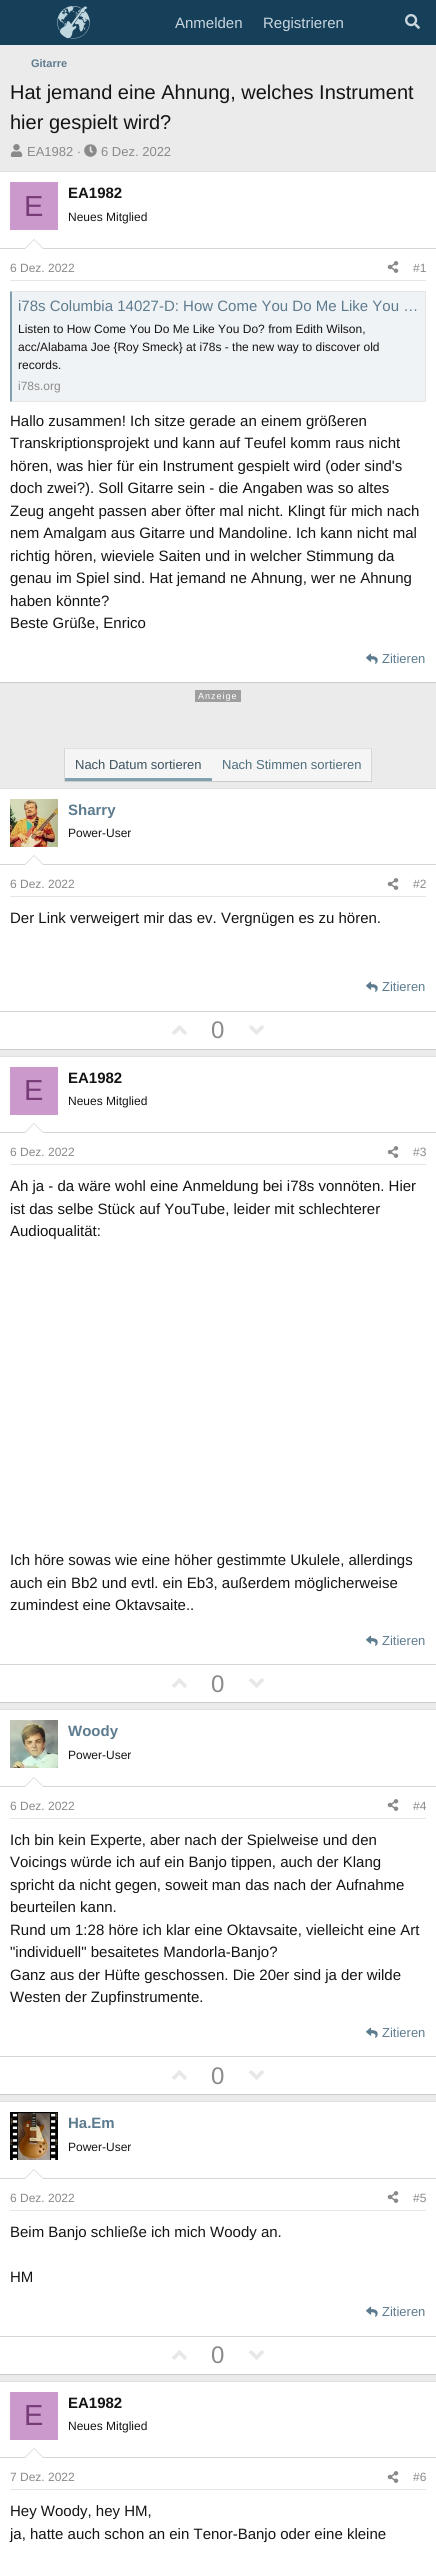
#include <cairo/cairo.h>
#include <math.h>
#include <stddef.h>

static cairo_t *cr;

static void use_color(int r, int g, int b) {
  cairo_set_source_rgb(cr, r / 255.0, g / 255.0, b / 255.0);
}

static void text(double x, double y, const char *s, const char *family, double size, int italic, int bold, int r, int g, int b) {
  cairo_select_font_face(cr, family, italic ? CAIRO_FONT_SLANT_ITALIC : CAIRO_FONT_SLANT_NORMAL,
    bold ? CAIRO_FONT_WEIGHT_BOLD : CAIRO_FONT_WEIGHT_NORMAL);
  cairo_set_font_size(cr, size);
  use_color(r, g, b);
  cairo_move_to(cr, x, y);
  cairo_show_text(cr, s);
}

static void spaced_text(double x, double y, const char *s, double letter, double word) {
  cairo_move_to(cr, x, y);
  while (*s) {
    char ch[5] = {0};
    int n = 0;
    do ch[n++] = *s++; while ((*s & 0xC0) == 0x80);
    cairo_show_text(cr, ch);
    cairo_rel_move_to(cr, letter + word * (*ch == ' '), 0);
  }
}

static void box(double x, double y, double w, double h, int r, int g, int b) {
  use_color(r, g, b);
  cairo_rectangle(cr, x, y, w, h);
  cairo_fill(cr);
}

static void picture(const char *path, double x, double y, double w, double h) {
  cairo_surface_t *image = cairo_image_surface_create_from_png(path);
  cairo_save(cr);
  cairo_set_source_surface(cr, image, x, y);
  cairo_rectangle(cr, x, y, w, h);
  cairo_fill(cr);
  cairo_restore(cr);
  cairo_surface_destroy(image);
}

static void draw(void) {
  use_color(235, 235, 235);
  cairo_paint(cr);
  box(0, 0, 436, 45, 22, 63, 90);
  picture("img_01.png", 57, 6, 33, 33);
  picture("img_02.png", 405, 14, 15, 15);
  picture("img_03.png", 10, 144, 13, 13);
  picture("img_04.png", 84, 144, 13, 13);
  box(0, 172, 436, 510, 255, 255, 255);
  box(0, 171, 436, 1, 224, 224, 224);
  box(0, 682, 436, 1, 204, 204, 204);
  box(0, 248, 436, 1, 214, 214, 214);
  box(10, 182, 48, 48, 204, 153, 204);
  use_color(214, 214, 214);
  cairo_new_path(cr);
  cairo_move_to(cr, 44, 249);
  cairo_line_to(cr, 24, 249);
  cairo_line_to(cr, 34, 239);
  cairo_close_path(cr);
  cairo_fill(cr);
  use_color(255, 255, 255);
  cairo_new_path(cr);
  cairo_move_to(cr, 43, 249);
  cairo_line_to(cr, 25, 249);
  cairo_line_to(cr, 34, 240);
  cairo_close_path(cr);
  cairo_fill(cr);
  box(10, 280, 416, 1, 230, 230, 230);
  picture("img_05.png", 387, 261, 12, 12);
  box(12, 292, 413, 109, 239, 243, 245);
  use_color(230, 230, 230);
  cairo_new_path(cr);
  cairo_move_to(cr, 10, 291);
  cairo_line_to(cr, 426, 291);
  cairo_line_to(cr, 425, 292);
  cairo_line_to(cr, 12, 292);
  cairo_close_path(cr);
  cairo_fill(cr);
  box(425, 291, 1, 111, 230, 230, 230);
  cairo_new_path(cr);
  cairo_move_to(cr, 426, 402);
  cairo_line_to(cr, 10, 402);
  cairo_line_to(cr, 12, 401);
  cairo_line_to(cr, 425, 401);
  cairo_close_path(cr);
  cairo_fill(cr);
  use_color(130, 161, 176);
  cairo_new_path(cr);
  cairo_move_to(cr, 10, 402);
  cairo_line_to(cr, 10, 291);
  cairo_line_to(cr, 12, 292);
  cairo_line_to(cr, 12, 401);
  cairo_close_path(cr);
  cairo_fill(cr);
  picture("img_06.png", 366, 653, 12, 11);
  box(195, 690, 46, 12, 158, 158, 158);
  box(65, 749, 306, 32, 245, 245, 245);
  box(64, 748, 308, 1, 224, 224, 224);
  box(371, 748, 1, 34, 214, 214, 214);
  box(64, 781, 308, 1, 204, 204, 204);
  box(64, 748, 1, 34, 214, 214, 214);
  box(65, 778, 147, 3, 130, 161, 176);
  box(0, 789, 436, 260, 255, 255, 255);
  box(0, 788, 436, 1, 224, 224, 224);
  box(0, 1049, 436, 1, 204, 204, 204);
  box(0, 864, 436, 1, 214, 214, 214);
  picture("img_07.png", 10, 799, 48, 48);
  cairo_new_path(cr);
  cairo_move_to(cr, 44, 865);
  cairo_line_to(cr, 24, 865);
  cairo_line_to(cr, 34, 855);
  cairo_close_path(cr);
  cairo_fill(cr);
  use_color(255, 255, 255);
  cairo_new_path(cr);
  cairo_move_to(cr, 43, 865);
  cairo_line_to(cr, 25, 865);
  cairo_line_to(cr, 34, 856);
  cairo_close_path(cr);
  cairo_fill(cr);
  box(10, 896, 416, 1, 230, 230, 230);
  picture("img_05.png", 387, 878, 12, 12);
  picture("img_06.png", 366, 981, 12, 11);
  box(0, 1011, 436, 1, 214, 214, 214);
  picture("img_08.png", 172, 1025, 15, 10);
  picture("img_09.png", 249, 1025, 15, 10);
  box(0, 1057, 436, 645, 255, 255, 255);
  box(0, 1056, 436, 1, 224, 224, 224);
  box(0, 1702, 436, 1, 204, 204, 204);
  box(0, 1132, 436, 1, 214, 214, 214);
  box(10, 1067, 48, 48, 204, 153, 204);
  use_color(214, 214, 214);
  cairo_new_path(cr);
  cairo_move_to(cr, 44, 1133);
  cairo_line_to(cr, 24, 1133);
  cairo_line_to(cr, 34, 1123);
  cairo_close_path(cr);
  cairo_fill(cr);
  use_color(255, 255, 255);
  cairo_new_path(cr);
  cairo_move_to(cr, 43, 1133);
  cairo_line_to(cr, 25, 1133);
  cairo_line_to(cr, 34, 1124);
  cairo_close_path(cr);
  cairo_fill(cr);
  box(10, 1164, 416, 1, 230, 230, 230);
  picture("img_05.png", 387, 1146, 12, 12);
  picture("img_06.png", 366, 1635, 12, 11);
  box(0, 1664, 436, 1, 214, 214, 214);
  picture("img_08.png", 172, 1678, 15, 10);
  picture("img_09.png", 249, 1678, 15, 10);
  box(0, 1710, 436, 384, 255, 255, 255);
  box(0, 1709, 436, 1, 224, 224, 224);
  box(0, 2094, 436, 1, 204, 204, 204);
  box(0, 1786, 436, 1, 214, 214, 214);
  picture("img_10.png", 10, 1720, 48, 48);
  cairo_new_path(cr);
  cairo_move_to(cr, 44, 1787);
  cairo_line_to(cr, 24, 1787);
  cairo_line_to(cr, 34, 1777);
  cairo_close_path(cr);
  cairo_fill(cr);
  use_color(255, 255, 255);
  cairo_new_path(cr);
  cairo_move_to(cr, 43, 1787);
  cairo_line_to(cr, 25, 1787);
  cairo_line_to(cr, 34, 1778);
  cairo_close_path(cr);
  cairo_fill(cr);
  box(10, 1818, 416, 1, 230, 230, 230);
  picture("img_05.png", 387, 1799, 12, 12);
  picture("img_06.png", 366, 2027, 12, 11);
  box(0, 2056, 436, 1, 214, 214, 214);
  picture("img_08.png", 172, 2070, 15, 10);
  picture("img_09.png", 249, 2070, 15, 10);
  box(0, 2102, 436, 272, 255, 255, 255);
  box(0, 2101, 436, 1, 224, 224, 224);
  box(0, 2374, 436, 1, 204, 204, 204);
  box(0, 2178, 436, 1, 214, 214, 214);
  picture("img_11.png", 10, 2112, 48, 48);
  cairo_new_path(cr);
  cairo_move_to(cr, 44, 2179);
  cairo_line_to(cr, 24, 2179);
  cairo_line_to(cr, 34, 2169);
  cairo_close_path(cr);
  cairo_fill(cr);
  use_color(255, 255, 255);
  cairo_new_path(cr);
  cairo_move_to(cr, 43, 2179);
  cairo_line_to(cr, 25, 2179);
  cairo_line_to(cr, 34, 2170);
  cairo_close_path(cr);
  cairo_fill(cr);
  box(10, 2210, 416, 1, 230, 230, 230);
  picture("img_05.png", 387, 2191, 12, 12);
  picture("img_06.png", 366, 2306, 12, 11);
  box(0, 2336, 436, 1, 214, 214, 214);
  picture("img_08.png", 172, 2350, 15, 10);
  picture("img_09.png", 249, 2350, 15, 10);
  box(0, 2382, 436, 171, 255, 255, 255);
  box(0, 2381, 436, 1, 224, 224, 224);
  box(0, 2457, 436, 1, 214, 214, 214);
  box(10, 2392, 48, 48, 204, 153, 204);
  use_color(214, 214, 214);
  cairo_new_path(cr);
  cairo_move_to(cr, 44, 2458);
  cairo_line_to(cr, 24, 2458);
  cairo_line_to(cr, 34, 2448);
  cairo_close_path(cr);
  cairo_fill(cr);
  use_color(255, 255, 255);
  cairo_new_path(cr);
  cairo_move_to(cr, 43, 2458);
  cairo_line_to(cr, 25, 2458);
  cairo_line_to(cr, 34, 2449);
  cairo_close_path(cr);
  cairo_fill(cr);
  box(10, 2489, 416, 1, 230, 230, 230);
  picture("img_05.png", 387, 2471, 12, 12);
  text(175, 28, "Anmelden", "Liberation Sans", 15, 0, 0, 201, 214, 222);
  text(263, 28, "Registrieren", "Liberation Sans", 15, 0, 0, 201, 214, 222);
  text(31, 67, "Gitarre", "Liberation Sans", 11, 0, 1, 93, 123, 142);
  text(10, 99, "Hat jemand eine Ahnung, welches Instrument", "Liberation Sans", 20, 0, 0, 20, 20, 20);
  text(10, 129, "hier gespielt wird?", "Liberation Sans", 20, 0, 0, 20, 20, 20);
  text(27, 156, "EA1982 ·", "Liberation Sans", 13, 0, 0, 138, 138, 138);
  text(101, 156, "6 Dez. 2022", "Liberation Sans", 13, 0, 0, 138, 138, 138);
  text(24, 216, "E", "Liberation Sans", 29, 0, 0, 119, 60, 119);
  text(68, 198, "EA1982", "Liberation Sans", 15, 0, 1, 20, 20, 20);
  text(68, 221, "Neues Mitglied", "Liberation Sans", 12, 0, 0, 20, 20, 20);
  text(10, 272, "6 Dez. 2022", "Liberation Sans", 12, 0, 0, 138, 138, 138);
  text(413, 272, "#1", "Liberation Sans", 12, 0, 0, 138, 138, 138);
  text(18, 311, "i78s Columbia 14027-D: How Come You Do Me Like You …", "Liberation Sans", 15, 0, 0, 93, 123, 142);
  text(18, 333, "Listen to How Come You Do Me Like You Do? from Edith Wilson,", "Liberation Sans", 12, 0, 0, 20, 20, 20);
  text(18, 351, "acc/Alabama Joe {Roy Smeck} at i78s - the new way to discover old", "Liberation Sans", 12, 0, 0, 20, 20, 20);
  text(18, 369, "records.", "Liberation Sans", 12, 0, 0, 20, 20, 20);
  text(18, 390, "i78s.org", "Liberation Sans", 12, 0, 0, 138, 138, 138);
  text(10, 426, "Hallo zusammen! Ich sitze gerade an einem größeren", "Liberation Sans", 15, 0, 0, 20, 20, 20);
  text(10, 448, "Transkriptionsprojekt und kann auf Teufel komm raus nicht", "Liberation Sans", 15, 0, 0, 20, 20, 20);
  text(10, 471, "hören, was hier für ein Instrument gespielt wird (oder sind's", "Liberation Sans", 15, 0, 0, 20, 20, 20);
  text(10, 493, "doch zwei?). Soll Gitarre sein - die Angaben was so altes", "Liberation Sans", 15, 0, 0, 20, 20, 20);
  text(10, 516, "Zeug angeht passen aber öfter mal nicht. Klingt für mich nach", "Liberation Sans", 15, 0, 0, 20, 20, 20);
  text(10, 538, "nem Amalgam aus Gitarre und Mandoline. Ich kann nicht mal", "Liberation Sans", 15, 0, 0, 20, 20, 20);
  text(10, 561, "richtig hören, wieviele Saiten und in welcher Stimmung da", "Liberation Sans", 15, 0, 0, 20, 20, 20);
  text(10, 583, "genau im Spiel sind. Hat jemand ne Ahnung, wer ne Ahnung", "Liberation Sans", 15, 0, 0, 20, 20, 20);
  text(10, 606, "haben könnte?", "Liberation Sans", 15, 0, 0, 20, 20, 20);
  text(10, 628, "Beste Grüße, Enrico", "Liberation Sans", 15, 0, 0, 20, 20, 20);
  text(382, 663, "Zitieren", "Liberation Sans", 13, 0, 0, 93, 123, 142);
  cairo_set_font_size(cr, 9);
  use_color(255, 255, 255);
  spaced_text(198, 699, "Anzeige", 1, 0);
  text(75, 769, "Nach Datum sortieren", "Liberation Sans", 13, 0, 0, 59, 82, 94);
  text(222, 769, "Nach Stimmen sortieren", "Liberation Sans", 13, 0, 0, 79, 110, 125);
  text(68, 815, "Sharry", "Liberation Sans", 15, 0, 1, 93, 123, 142);
  text(68, 837, "Power-User", "Liberation Sans", 12, 0, 0, 20, 20, 20);
  text(10, 888, "6 Dez. 2022", "Liberation Sans", 12, 0, 0, 138, 138, 138);
  text(413, 888, "#2", "Liberation Sans", 12, 0, 0, 138, 138, 138);
  text(10, 923, "Der Link verweigert mir das ev. Vergnügen es zu hören.", "Liberation Sans", 15, 0, 0, 20, 20, 20);
  text(382, 991, "Zitieren", "Liberation Sans", 13, 0, 0, 93, 123, 142);
  text(211, 1038, "0", "Liberation Sans", 24, 0, 0, 138, 138, 138);
  text(24, 1100, "E", "Liberation Sans", 29, 0, 0, 119, 60, 119);
  text(68, 1083, "EA1982", "Liberation Sans", 15, 0, 1, 20, 20, 20);
  text(68, 1105, "Neues Mitglied", "Liberation Sans", 12, 0, 0, 20, 20, 20);
  text(10, 1156, "6 Dez. 2022", "Liberation Sans", 12, 0, 0, 138, 138, 138);
  text(413, 1156, "#3", "Liberation Sans", 12, 0, 0, 138, 138, 138);
  text(10, 1191, "Ah ja - da wäre wohl eine Anmeldung bei i78s vonnöten. Hier", "Liberation Sans", 15, 0, 0, 20, 20, 20);
  text(10, 1214, "ist das selbe Stück auf YouTube, leider mit schlechterer", "Liberation Sans", 15, 0, 0, 20, 20, 20);
  text(10, 1236, "Audioqualität:", "Liberation Sans", 15, 0, 0, 20, 20, 20);
  text(10, 1565, "Ich höre sowas wie eine höher gestimmte Ukulele, allerdings", "Liberation Sans", 15, 0, 0, 20, 20, 20);
  text(10, 1588, "auch ein Bb2 und evtl. ein Eb3, außerdem möglicherweise", "Liberation Sans", 15, 0, 0, 20, 20, 20);
  text(10, 1610, "zumindest eine Oktavsaite..", "Liberation Sans", 15, 0, 0, 20, 20, 20);
  text(382, 1645, "Zitieren", "Liberation Sans", 13, 0, 0, 93, 123, 142);
  text(211, 1692, "0", "Liberation Sans", 24, 0, 0, 138, 138, 138);
  text(68, 1736, "Woody", "Liberation Sans", 15, 0, 1, 93, 123, 142);
  text(68, 1759, "Power-User", "Liberation Sans", 12, 0, 0, 20, 20, 20);
  text(10, 1810, "6 Dez. 2022", "Liberation Sans", 12, 0, 0, 138, 138, 138);
  text(413, 1810, "#4", "Liberation Sans", 12, 0, 0, 138, 138, 138);
  text(10, 1845, "Ich bin kein Experte, aber nach der Spielweise und den", "Liberation Sans", 15, 0, 0, 20, 20, 20);
  text(10, 1867, "Voicings würde ich auf ein Banjo tippen, auch der Klang", "Liberation Sans", 15, 0, 0, 20, 20, 20);
  text(10, 1890, "spricht da nicht gegen, soweit man das nach der Aufnahme", "Liberation Sans", 15, 0, 0, 20, 20, 20);
  text(10, 1912, "beurteilen kann.", "Liberation Sans", 15, 0, 0, 20, 20, 20);
  text(10, 1935, "Rund um 1:28 höre ich klar eine Oktavsaite, vielleicht eine Art", "Liberation Sans", 15, 0, 0, 20, 20, 20);
  text(10, 1957, "\"individuell\" besaitetes Mandorla-Banjo?", "Liberation Sans", 15, 0, 0, 20, 20, 20);
  text(10, 1980, "Ganz aus der Hüfte geschossen. Die 20er sind ja der wilde", "Liberation Sans", 15, 0, 0, 20, 20, 20);
  text(10, 2002, "Westen der Zupfinstrumente.", "Liberation Sans", 15, 0, 0, 20, 20, 20);
  text(382, 2037, "Zitieren", "Liberation Sans", 13, 0, 0, 93, 123, 142);
  text(211, 2084, "0", "Liberation Sans", 24, 0, 0, 138, 138, 138);
  text(68, 2128, "Ha.Em", "Liberation Sans", 15, 0, 1, 93, 123, 142);
  text(68, 2151, "Power-User", "Liberation Sans", 12, 0, 0, 20, 20, 20);
  text(10, 2202, "6 Dez. 2022", "Liberation Sans", 12, 0, 0, 138, 138, 138);
  text(413, 2202, "#5", "Liberation Sans", 12, 0, 0, 138, 138, 138);
  text(10, 2237, "Beim Banjo schließe ich mich Woody an.", "Liberation Sans", 15, 0, 0, 20, 20, 20);
  text(10, 2282, "HM", "Liberation Sans", 15, 0, 0, 20, 20, 20);
  text(382, 2316, "Zitieren", "Liberation Sans", 13, 0, 0, 93, 123, 142);
  text(211, 2363, "0", "Liberation Sans", 24, 0, 0, 138, 138, 138);
  text(24, 2425, "E", "Liberation Sans", 29, 0, 0, 119, 60, 119);
  text(68, 2408, "EA1982", "Liberation Sans", 15, 0, 1, 20, 20, 20);
  text(68, 2430, "Neues Mitglied", "Liberation Sans", 12, 0, 0, 20, 20, 20);
  text(10, 2481, "7 Dez. 2022", "Liberation Sans", 12, 0, 0, 138, 138, 138);
  text(413, 2481, "#6", "Liberation Sans", 12, 0, 0, 138, 138, 138);
  text(10, 2516, "Hey Woody, hey HM,", "Liberation Sans", 15, 0, 0, 20, 20, 20);
  text(10, 2539, "ja, hatte auch schon an ein Tenor-Banjo oder eine kleine", "Liberation Sans", 15, 0, 0, 20, 20, 20);
}

int main(void) {
  cairo_surface_t *surface = cairo_image_surface_create(CAIRO_FORMAT_RGB24, 436, 2553);
  cr = cairo_create(surface);
  cairo_font_options_t *options = cairo_font_options_create();
  cairo_font_options_set_hint_metrics(options, CAIRO_HINT_METRICS_OFF);
  cairo_font_options_set_hint_style(options, CAIRO_HINT_STYLE_NONE);
  cairo_set_font_options(cr, options);
  cairo_set_miter_limit(cr, 4);
  draw();
  cairo_surface_write_to_png(surface, "out.png");
  cairo_font_options_destroy(options);
  cairo_destroy(cr);
  cairo_surface_destroy(surface);
  return 0;
}
